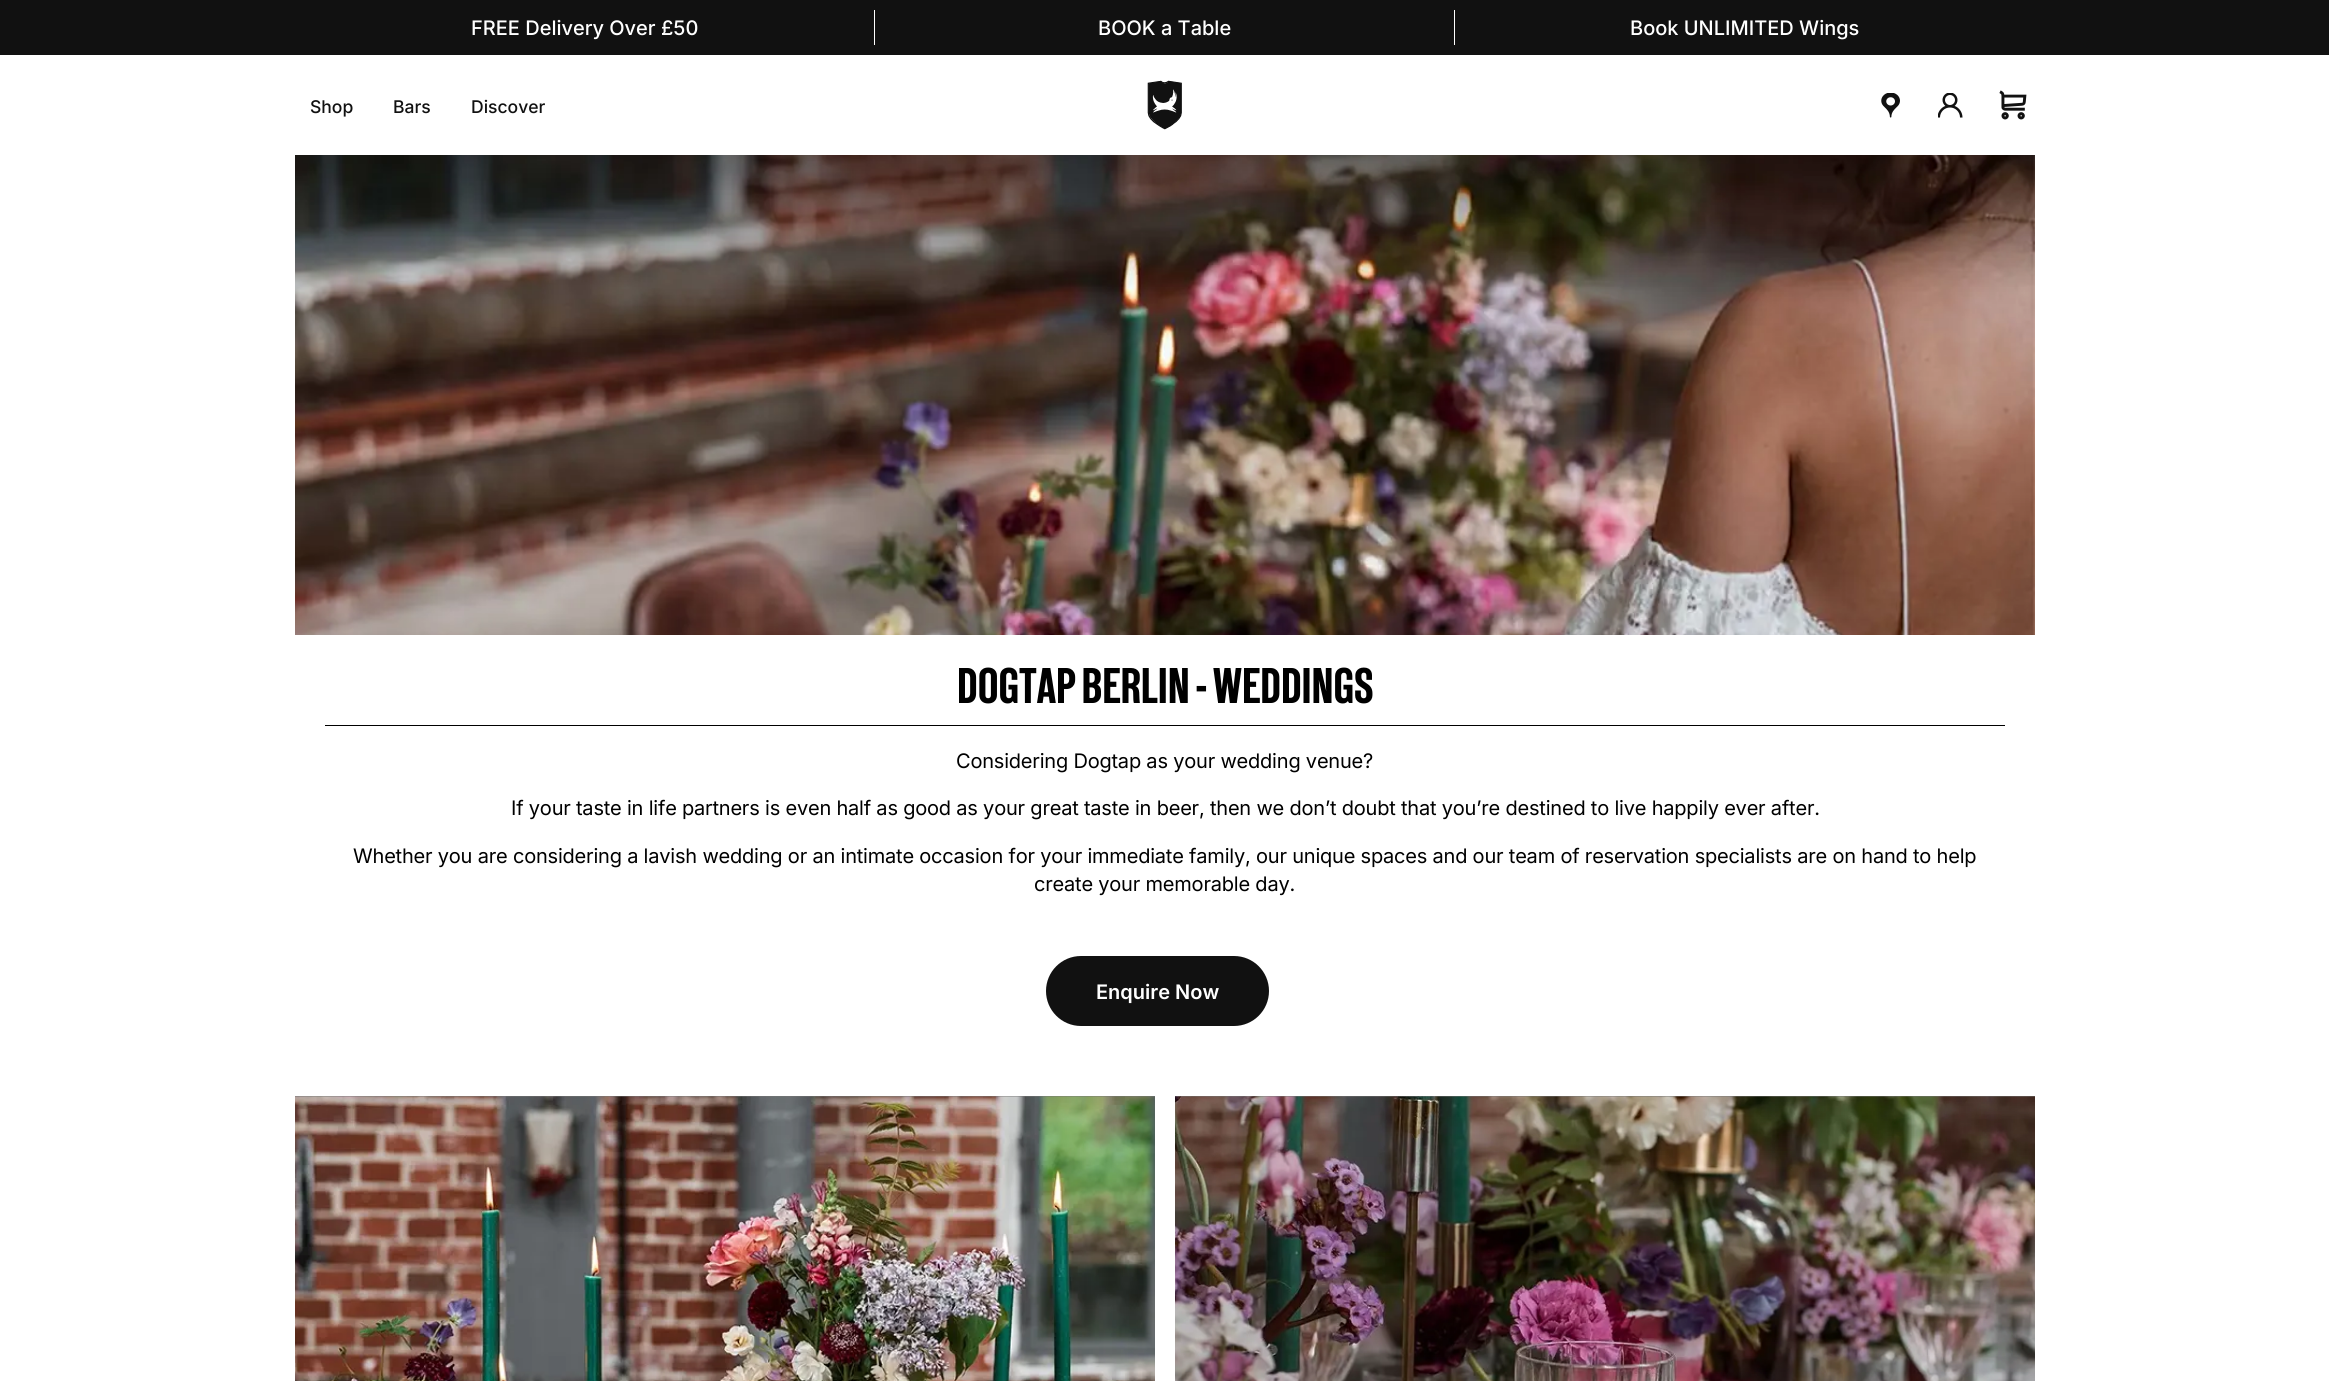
#include <cairo/cairo.h>
#include <math.h>
#include <stddef.h>

static cairo_t *cr;

static void use_color(int r, int g, int b) {
  cairo_set_source_rgb(cr, r / 255.0, g / 255.0, b / 255.0);
}

static void text(double x, double y, const char *s, const char *family, double size, int italic, int bold, int r, int g, int b) {
  cairo_select_font_face(cr, family, italic ? CAIRO_FONT_SLANT_ITALIC : CAIRO_FONT_SLANT_NORMAL,
    bold ? CAIRO_FONT_WEIGHT_BOLD : CAIRO_FONT_WEIGHT_NORMAL);
  cairo_set_font_size(cr, size);
  use_color(r, g, b);
  cairo_move_to(cr, x, y);
  cairo_show_text(cr, s);
}

static void spaced_text(double x, double y, const char *s, double letter, double word) {
  cairo_move_to(cr, x, y);
  while (*s) {
    char ch[5] = {0};
    int n = 0;
    do ch[n++] = *s++; while ((*s & 0xC0) == 0x80);
    cairo_show_text(cr, ch);
    cairo_rel_move_to(cr, letter + word * (*ch == ' '), 0);
  }
}

static void box(double x, double y, double w, double h, int r, int g, int b) {
  use_color(r, g, b);
  cairo_rectangle(cr, x, y, w, h);
  cairo_fill(cr);
}

static void round_rect(double x, double y, double w, double h, double r) {
  cairo_new_sub_path(cr);
  cairo_arc(cr, x + w - r, y + h - r, r, 0, M_PI / 2);
  cairo_arc(cr, x + r, y + h - r, r, M_PI / 2, M_PI);
  cairo_arc(cr, x + r, y + r, r, M_PI, 1.5 * M_PI);
  cairo_arc(cr, x + w - r, y + r, r, 1.5 * M_PI, 2 * M_PI);
  cairo_close_path(cr);
}

static void picture(const char *path, double x, double y, double w, double h) {
  cairo_surface_t *image = cairo_image_surface_create_from_png(path);
  cairo_save(cr);
  cairo_set_source_surface(cr, image, x, y);
  cairo_rectangle(cr, x, y, w, h);
  cairo_fill(cr);
  cairo_restore(cr);
  cairo_surface_destroy(image);
}

static void draw(void) {
  use_color(255, 255, 255);
  cairo_paint(cr);
  box(0, 0, 2329, 55, 17, 17, 17);
  box(874, 10, 1, 35, 255, 255, 255);
  box(1454, 10, 1, 35, 255, 255, 255);
  picture("img_01.png", 1147, 80, 35, 50);
  picture("img_02.png", 1881, 93, 19, 25);
  picture("img_03.png", 1938, 93, 25, 25);
  picture("img_04.png", 1999, 90, 28, 30);
  picture("img_05.png", 295, 155, 1740, 480);
  box(325, 725, 1680, 1, 0, 0, 0);
  use_color(17, 17, 17);
  round_rect(1046, 956, 223, 70, 35);
  cairo_fill(cr);
  box(295, 1096, 860, 1, 119, 119, 119);
  picture("img_06.png", 295, 1096, 860, 285);
  box(1175, 1096, 860, 1, 119, 119, 119);
  picture("img_07.png", 1175, 1096, 860, 285);
  text(471, 35, "FREE Delivery Over £50", "Inter Medium", 20, 0, 0, 255, 255, 255);
  text(1098, 35, "BOOK a Table", "Inter Medium", 20, 0, 0, 255, 255, 255);
  text(1630, 35, "Book UNLIMITED Wings", "Inter Medium", 20, 0, 0, 255, 255, 255);
  text(310, 113, "Shop", "Inter Medium", 17.5, 0, 0, 17, 17, 17);
  text(393, 113, "Bars", "Inter Medium", 17.5, 0, 0, 17, 17, 17);
  text(471, 113, "Discover", "Inter Medium", 17.5, 0, 0, 17, 17, 17);
  text(957, 703, "DOGTAP BERLIN - WEDDINGS", "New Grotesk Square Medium", 50, 0, 0, 0, 0, 0);
  cairo_select_font_face(cr, "Inter", CAIRO_FONT_SLANT_NORMAL, CAIRO_FONT_WEIGHT_NORMAL);
  cairo_set_font_size(cr, 20);
  spaced_text(956, 768, "Considering Dogtap as your wedding venue?", -0.2, 0);
  spaced_text(511, 815, "If your taste in life partners is even half as good as your great taste in beer, then we don’t doubt that you’re destined to live happily ever after.", -0.2, 0);
  spaced_text(353, 863, "Whether you are considering a lavish wedding or an intimate occasion for your immediate family, our unique spaces and our team of reservation specialists are on hand to help", -0.2, 0);
  spaced_text(1034, 891, "create your memorable day.", -0.2, 0);
  text(1096, 999, "Enquire Now", "Inter SemiBold", 20, 0, 0, 255, 255, 255);
}

int main(void) {
  cairo_surface_t *surface = cairo_image_surface_create(CAIRO_FORMAT_RGB24, 2329, 1381);
  cr = cairo_create(surface);
  cairo_font_options_t *options = cairo_font_options_create();
  cairo_font_options_set_hint_metrics(options, CAIRO_HINT_METRICS_OFF);
  cairo_font_options_set_hint_style(options, CAIRO_HINT_STYLE_NONE);
  cairo_set_font_options(cr, options);
  cairo_set_miter_limit(cr, 4);
  draw();
  cairo_surface_write_to_png(surface, "out.png");
  cairo_font_options_destroy(options);
  cairo_destroy(cr);
  cairo_surface_destroy(surface);
  return 0;
}
